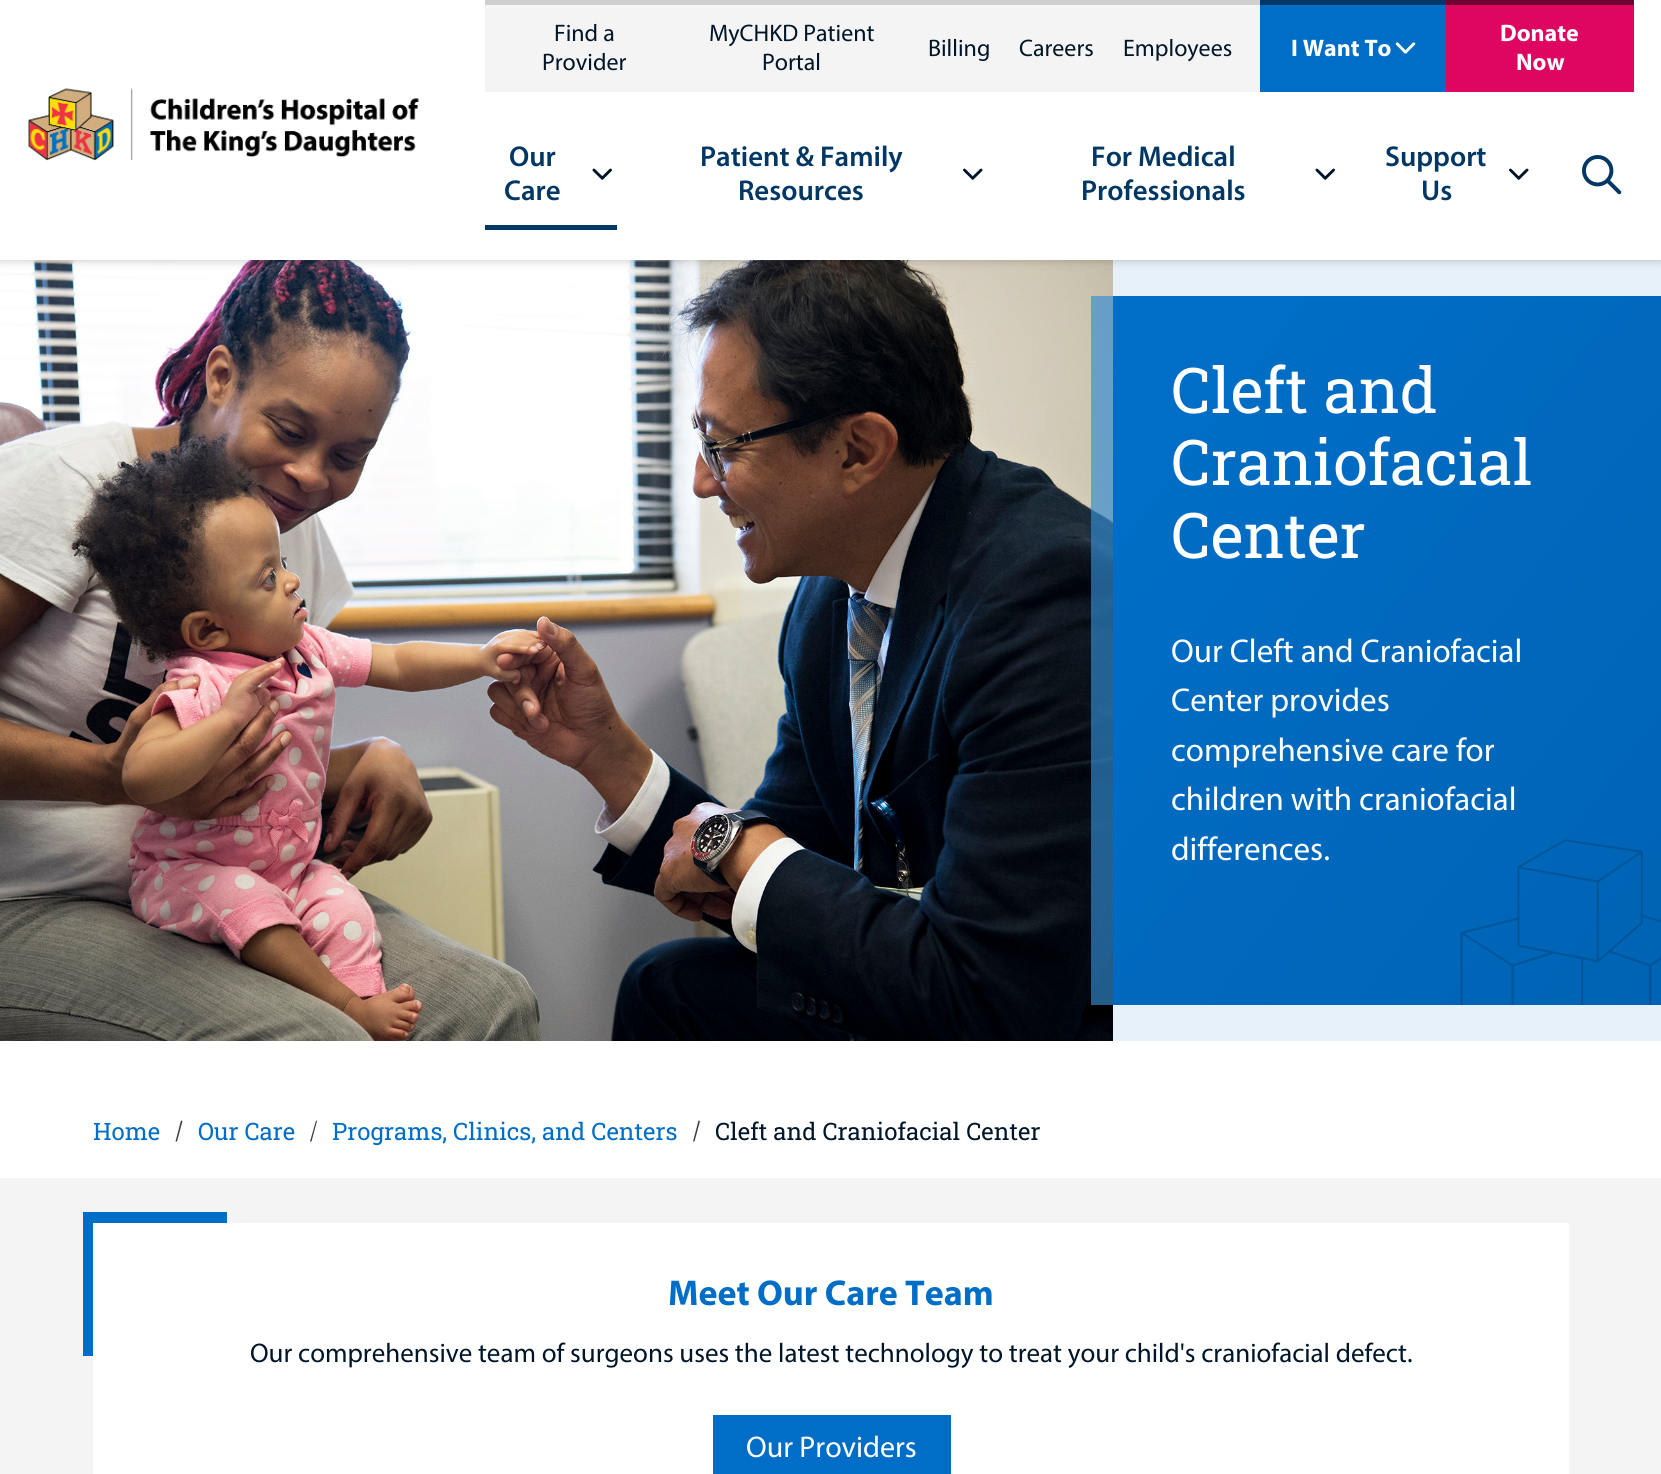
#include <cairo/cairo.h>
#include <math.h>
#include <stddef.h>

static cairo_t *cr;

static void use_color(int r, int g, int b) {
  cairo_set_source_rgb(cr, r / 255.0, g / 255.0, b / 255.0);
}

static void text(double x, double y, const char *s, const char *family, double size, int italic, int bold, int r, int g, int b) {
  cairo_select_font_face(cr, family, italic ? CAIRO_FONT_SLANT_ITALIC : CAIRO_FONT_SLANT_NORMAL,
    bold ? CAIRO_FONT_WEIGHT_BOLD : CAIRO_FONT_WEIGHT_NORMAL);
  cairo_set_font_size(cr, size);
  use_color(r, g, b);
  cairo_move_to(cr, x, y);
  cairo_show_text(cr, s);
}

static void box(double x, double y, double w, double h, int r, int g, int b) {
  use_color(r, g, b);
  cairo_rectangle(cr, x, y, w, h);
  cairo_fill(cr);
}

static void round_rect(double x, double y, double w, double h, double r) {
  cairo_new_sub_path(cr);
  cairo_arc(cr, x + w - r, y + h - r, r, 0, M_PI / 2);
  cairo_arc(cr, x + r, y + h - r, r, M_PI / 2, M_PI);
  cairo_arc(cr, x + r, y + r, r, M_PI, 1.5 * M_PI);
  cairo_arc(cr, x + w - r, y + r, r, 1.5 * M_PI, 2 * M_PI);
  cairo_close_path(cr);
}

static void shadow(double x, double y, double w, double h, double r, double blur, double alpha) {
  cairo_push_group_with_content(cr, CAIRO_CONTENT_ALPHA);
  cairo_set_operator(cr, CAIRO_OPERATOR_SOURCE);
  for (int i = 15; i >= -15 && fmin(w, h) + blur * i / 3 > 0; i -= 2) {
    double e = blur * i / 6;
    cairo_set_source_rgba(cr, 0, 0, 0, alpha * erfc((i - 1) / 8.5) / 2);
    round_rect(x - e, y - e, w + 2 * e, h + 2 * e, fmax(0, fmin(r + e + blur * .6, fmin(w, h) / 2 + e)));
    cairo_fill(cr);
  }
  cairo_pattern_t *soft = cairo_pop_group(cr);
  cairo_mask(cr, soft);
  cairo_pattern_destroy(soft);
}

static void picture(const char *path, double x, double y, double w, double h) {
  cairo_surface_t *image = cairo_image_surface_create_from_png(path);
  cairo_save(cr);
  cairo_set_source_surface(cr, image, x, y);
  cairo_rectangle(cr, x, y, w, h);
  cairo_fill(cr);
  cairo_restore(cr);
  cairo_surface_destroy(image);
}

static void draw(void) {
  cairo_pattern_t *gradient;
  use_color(255, 255, 255);
  cairo_paint(cr);
  box(1113, 260, 548, 781, 230, 241, 249);
  picture("img_07.png", 0, 260, 1113, 781);
  use_color(0, 0, 0);
  shadow(0, 2, 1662, 259, 0, 4.5, 0.2);
  box(0, 0, 1661, 260, 255, 255, 255);
  box(485, 5, 775, 87, 244, 244, 244);
  box(485, 0, 775, 5, 207, 207, 207);
  box(1260, 5, 186, 87, 0, 110, 199);
  box(1260, 0, 186, 5, 0, 55, 100);
  picture("img_01.png", 1395, 42, 21, 12);
  box(1446, 5, 188, 87, 222, 6, 97);
  box(1446, 0, 188, 5, 111, 3, 49);
  picture("img_02.png", 28, 88, 391, 73);
  box(485, 225, 132, 5, 0, 55, 100);
  picture("img_03.png", 592, 168, 20, 12);
  picture("img_04.png", 963, 168, 20, 12);
  picture("img_03.png", 1315, 168, 20, 12);
  picture("img_05.png", 1509, 168, 20, 12);
  picture("img_06.png", 1582, 155, 40, 40);
  gradient = cairo_pattern_create_linear(1042, 391, 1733, 910);
  cairo_pattern_add_color_stop_rgba(gradient, 0.12, 0, 0.431, 0.78, 1);
  cairo_pattern_add_color_stop_rgba(gradient, 1, 0, 0.388, 0.702, 1);
  cairo_set_source(cr, gradient);
  cairo_pattern_destroy(gradient);
  cairo_rectangle(cr, 1113, 296, 548, 709);
  cairo_fill(cr);
  picture("img_08.png", 1460, 839, 201, 166);
  cairo_set_source_rgba(cr, 0.2, 0.545, 0.824, 0.66);
  cairo_rectangle(cr, 1091, 296, 22, 709);
  cairo_fill(cr);
  use_color(61, 61, 61);
  cairo_new_path(cr);
  cairo_move_to(cr, 181, 1120.5);
  cairo_line_to(cr, 182.5, 1121);
  cairo_line_to(cr, 177, 1141.5);
  cairo_line_to(cr, 175.5, 1141.5);
  cairo_close_path(cr);
  cairo_fill(cr);
  cairo_new_path(cr);
  cairo_move_to(cr, 316, 1120.5);
  cairo_line_to(cr, 317, 1121);
  cairo_line_to(cr, 311.5, 1141.5);
  cairo_line_to(cr, 310, 1141.5);
  cairo_close_path(cr);
  cairo_fill(cr);
  cairo_new_path(cr);
  cairo_move_to(cr, 698.5, 1120.5);
  cairo_line_to(cr, 700, 1121);
  cairo_line_to(cr, 694.5, 1141.5);
  cairo_line_to(cr, 693, 1141.5);
  cairo_close_path(cr);
  cairo_fill(cr);
  box(0, 1178, 1661, 296, 244, 244, 244);
  box(83, 1212, 144, 144, 0, 110, 199);
  box(93, 1223, 1476, 251, 255, 255, 255);
  box(713, 1415, 238, 59, 0, 110, 199);
  text(554, 41, "Find a", "Myriad", 24, 0, 0, 0, 22, 40);
  text(542, 70, "Provider", "Myriad", 24, 0, 0, 0, 22, 40);
  text(709, 41, "MyCHKD Patient", "Myriad", 24, 0, 0, 0, 22, 40);
  text(762, 70, "Portal", "Myriad", 24, 0, 0, 0, 22, 40);
  text(928, 56, "Billing", "Myriad", 24, 0, 0, 0, 22, 40);
  text(1019, 56, "Careers", "Myriad", 24, 0, 0, 0, 22, 40);
  text(1123, 56, "Employees", "Myriad", 24, 0, 0, 0, 22, 40);
  text(1291, 56, "I Want To", "Myriad", 24, 0, 1, 255, 255, 255);
  text(1500, 41, "Donate", "Myriad", 24, 0, 1, 255, 255, 255);
  text(1516, 70, "Now", "Myriad", 24, 0, 1, 255, 255, 255);
  text(509, 166, "Our", "Myriad SemiBold", 28.75, 0, 0, 0, 55, 100);
  text(504, 200, "Care", "Myriad SemiBold", 28.75, 0, 0, 0, 55, 100);
  text(700, 166, "Patient & Family", "Myriad SemiBold", 28.75, 0, 0, 0, 55, 100);
  text(738, 200, "Resources", "Myriad SemiBold", 28.75, 0, 0, 0, 55, 100);
  text(1091, 166, "For Medical", "Myriad SemiBold", 28.75, 0, 0, 0, 55, 100);
  text(1081, 200, "Professionals", "Myriad SemiBold", 28.75, 0, 0, 0, 55, 100);
  text(1385, 166, "Support", "Myriad SemiBold", 28.75, 0, 0, 0, 55, 100);
  text(1421, 200, "Us", "Myriad SemiBold", 28.75, 0, 0, 0, 55, 100);
  text(1171, 413, "Cleft and", "Roboto Slab", 63, 0, 0, 255, 255, 255);
  text(1171, 485, "Craniofacial", "Roboto Slab", 63, 0, 0, 255, 255, 255);
  text(1171, 558, "Center", "Roboto Slab", 63, 0, 0, 255, 255, 255);
  text(1171, 662, "Our Cleft and Craniofacial", "Myriad", 33, 0, 0, 255, 255, 255);
  text(1171, 711, "Center provides", "Myriad", 33, 0, 0, 255, 255, 255);
  text(1171, 761, "comprehensive care for", "Myriad", 33, 0, 0, 255, 255, 255);
  text(1171, 810, "children with craniofacial", "Myriad", 33, 0, 0, 255, 255, 255);
  text(1171, 860, "differences.", "Myriad", 33, 0, 0, 255, 255, 255);
  text(93, 1140, "Home", "Roboto Slab", 24, 0, 0, 0, 110, 199);
  text(198, 1140, "Our Care", "Roboto Slab", 24, 0, 0, 0, 110, 199);
  text(332, 1140, "Programs, Clinics, and Centers", "Roboto Slab", 24, 0, 0, 0, 110, 199);
  text(715, 1140, "Cleft and Craniofacial Center", "Roboto Slab", 24, 0, 0, 0, 22, 40);
  text(668, 1305, "Meet Our Care Team", "Myriad", 36, 0, 1, 0, 110, 199);
  text(250, 1362, "Our comprehensive team of surgeons uses the latest technology to treat your child's craniofacial defect.", "Myriad", 27, 0, 0, 0, 22, 40);
  text(746, 1457, "Our Providers", "Myriad", 30, 0, 0, 255, 255, 255);
}

int main(void) {
  cairo_surface_t *surface = cairo_image_surface_create(CAIRO_FORMAT_RGB24, 1661, 1474);
  cr = cairo_create(surface);
  cairo_font_options_t *options = cairo_font_options_create();
  cairo_font_options_set_hint_metrics(options, CAIRO_HINT_METRICS_OFF);
  cairo_font_options_set_hint_style(options, CAIRO_HINT_STYLE_NONE);
  cairo_set_font_options(cr, options);
  cairo_set_miter_limit(cr, 4);
  draw();
  cairo_surface_write_to_png(surface, "out.png");
  cairo_font_options_destroy(options);
  cairo_destroy(cr);
  cairo_surface_destroy(surface);
  return 0;
}
